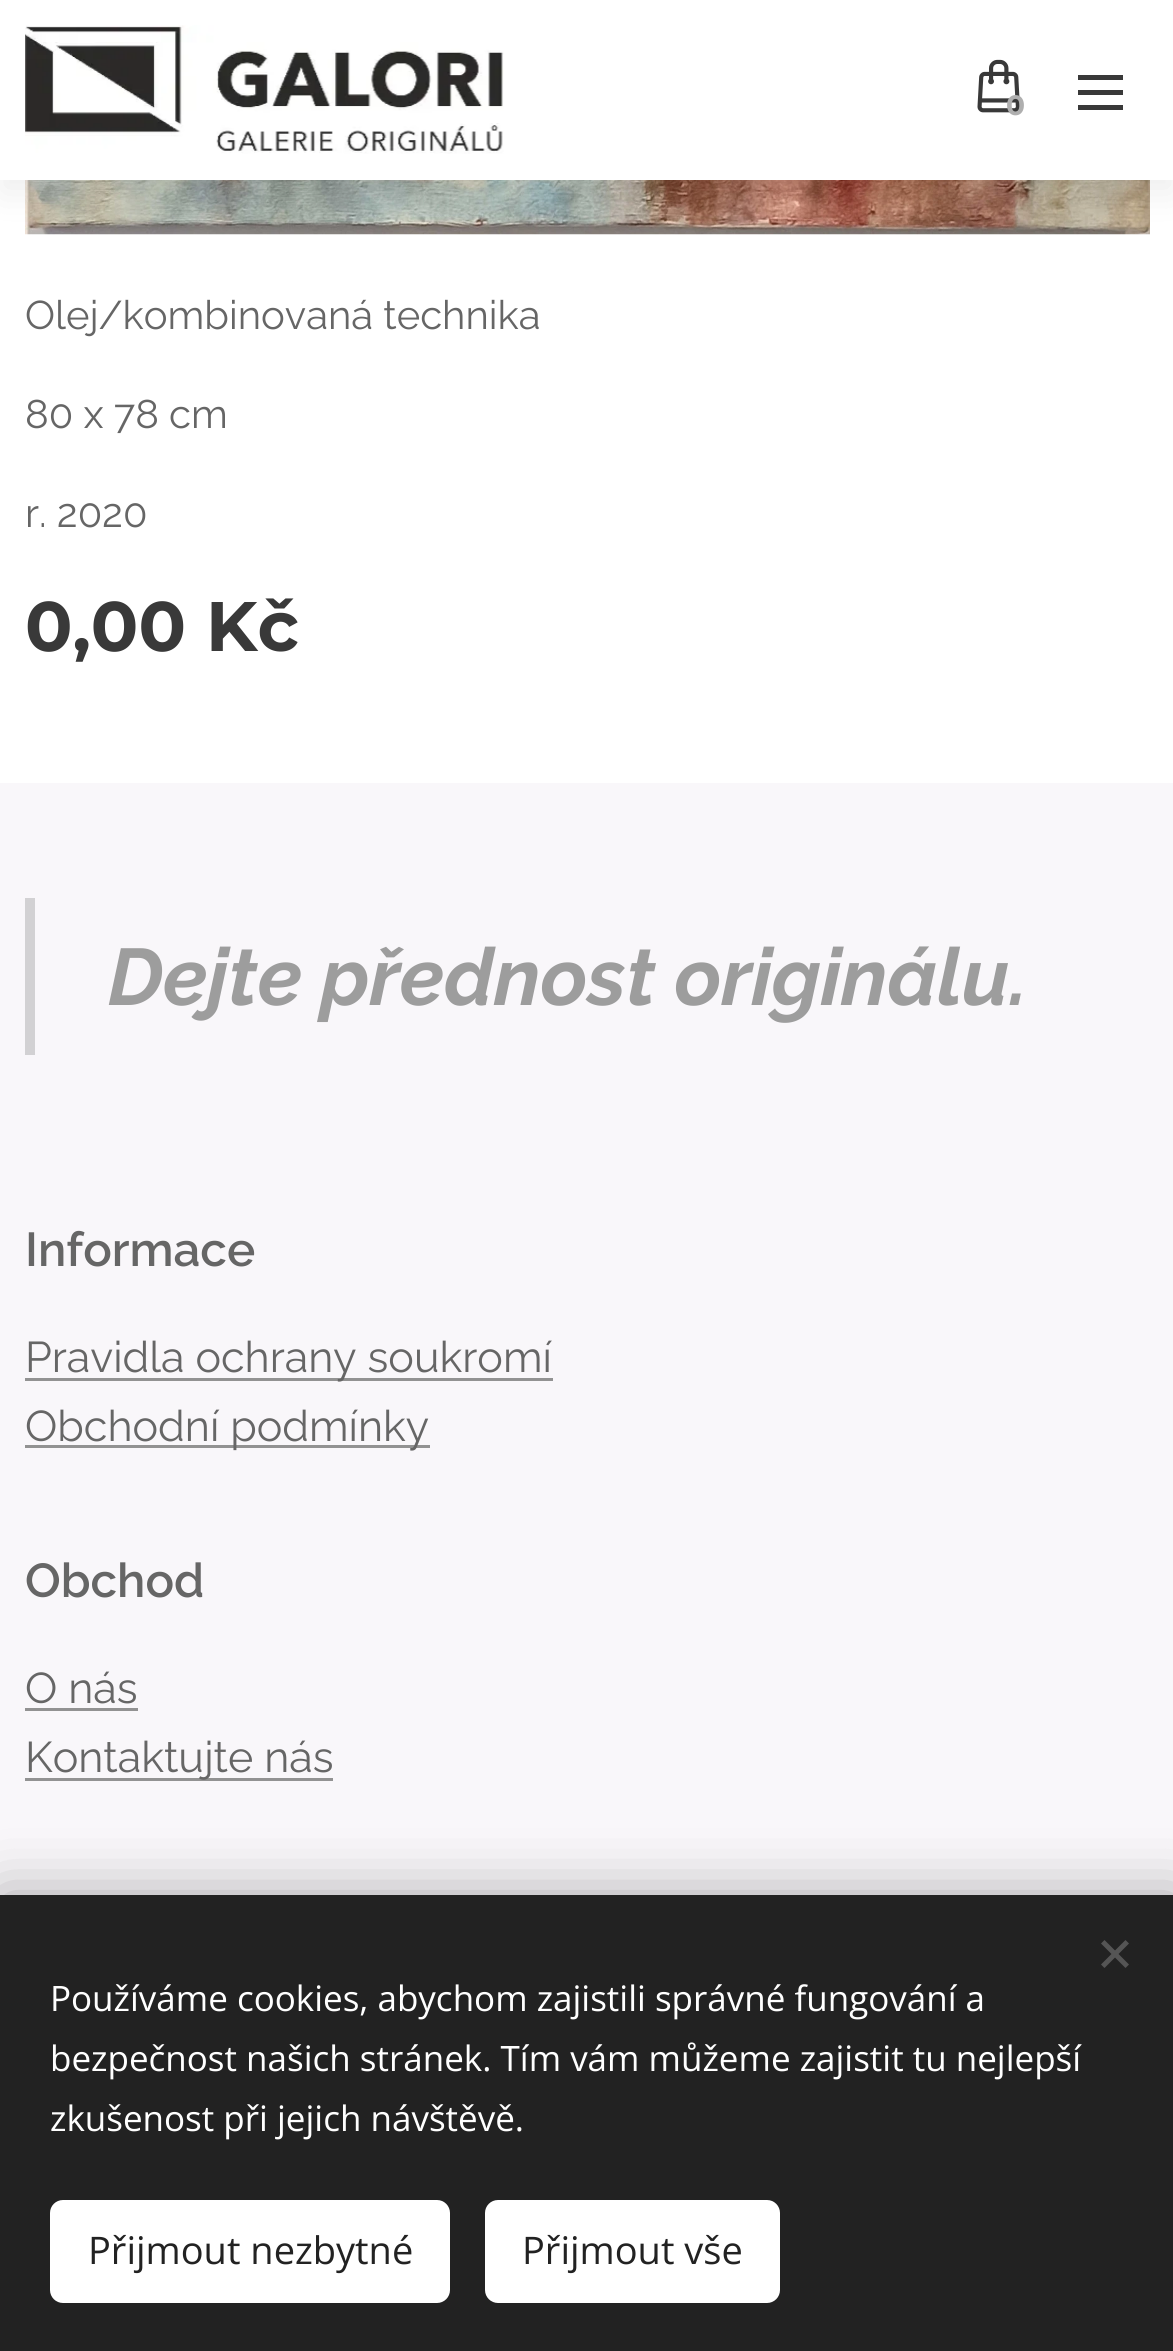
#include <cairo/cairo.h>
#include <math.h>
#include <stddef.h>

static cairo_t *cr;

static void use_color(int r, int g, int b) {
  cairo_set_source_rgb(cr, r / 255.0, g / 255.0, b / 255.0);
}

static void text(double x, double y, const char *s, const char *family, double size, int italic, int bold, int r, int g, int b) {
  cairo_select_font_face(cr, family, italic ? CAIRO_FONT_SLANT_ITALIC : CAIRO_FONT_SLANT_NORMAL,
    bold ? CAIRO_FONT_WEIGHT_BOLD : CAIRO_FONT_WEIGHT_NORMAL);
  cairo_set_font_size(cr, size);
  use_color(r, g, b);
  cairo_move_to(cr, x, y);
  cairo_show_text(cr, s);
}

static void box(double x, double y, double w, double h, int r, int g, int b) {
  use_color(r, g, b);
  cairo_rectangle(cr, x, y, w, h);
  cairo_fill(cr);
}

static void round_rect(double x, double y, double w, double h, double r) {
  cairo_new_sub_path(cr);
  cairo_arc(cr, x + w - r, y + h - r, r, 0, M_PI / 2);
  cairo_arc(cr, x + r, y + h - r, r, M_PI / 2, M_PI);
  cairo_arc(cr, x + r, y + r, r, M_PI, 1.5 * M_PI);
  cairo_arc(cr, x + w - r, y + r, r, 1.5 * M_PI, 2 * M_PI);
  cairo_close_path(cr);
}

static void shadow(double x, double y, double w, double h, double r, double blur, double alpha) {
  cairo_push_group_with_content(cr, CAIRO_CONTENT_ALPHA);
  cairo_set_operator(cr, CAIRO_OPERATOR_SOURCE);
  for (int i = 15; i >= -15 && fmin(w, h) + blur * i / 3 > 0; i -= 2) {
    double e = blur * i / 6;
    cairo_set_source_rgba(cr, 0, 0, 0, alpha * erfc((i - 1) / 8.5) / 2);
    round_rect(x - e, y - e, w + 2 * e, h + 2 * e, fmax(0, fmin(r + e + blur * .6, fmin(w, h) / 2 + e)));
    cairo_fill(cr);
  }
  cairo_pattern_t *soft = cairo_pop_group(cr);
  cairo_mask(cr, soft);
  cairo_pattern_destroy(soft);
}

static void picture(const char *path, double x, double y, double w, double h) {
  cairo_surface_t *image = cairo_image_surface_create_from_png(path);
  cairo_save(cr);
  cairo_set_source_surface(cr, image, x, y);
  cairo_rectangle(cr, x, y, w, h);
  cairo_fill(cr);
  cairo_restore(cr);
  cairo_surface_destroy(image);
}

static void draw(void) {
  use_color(255, 255, 255);
  cairo_paint(cr);
  picture("img_03.png", 25, 180, 1125, 55);
  use_color(0, 0, 0);
  shadow(0, 13, 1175, 180, 0, 19, 0.07);
  box(0, 0, 1173, 180, 255, 255, 255);
  picture("img_01.png", 25, 25, 479, 129);
  picture("img_02.png", 977, 59, 43, 54);
  box(1078, 90, 45, 5, 57, 57, 57);
  box(1078, 75, 45, 5, 57, 57, 57);
  box(1078, 105, 45, 5, 57, 57, 57);
  box(0, 783, 1173, 1112, 249, 247, 250);
  box(25, 898, 10, 157, 210, 209, 211);
  box(25, 1378, 528, 3, 146, 146, 146);
  box(25, 1445, 405, 3, 146, 146, 146);
  box(25, 1708, 113, 3, 146, 146, 146);
  box(25, 1778, 308, 3, 146, 146, 146);
  use_color(0, 0, 0);
  shadow(0, 1895, 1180, 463, 0, 31, 0.33);
  box(0, 1895, 1173, 456, 34, 34, 34);
  use_color(85, 85, 85);
  cairo_new_path(cr);
  cairo_move_to(cr, 1101, 1964.5);
  cairo_line_to(cr, 1125.5, 1940);
  cairo_line_to(cr, 1129, 1943.5);
  cairo_line_to(cr, 1104.5, 1968);
  cairo_close_path(cr);
  cairo_fill(cr);
  cairo_new_path(cr);
  cairo_move_to(cr, 1104.5, 1940);
  cairo_line_to(cr, 1129, 1964.5);
  cairo_line_to(cr, 1125.5, 1968);
  cairo_line_to(cr, 1101, 1943.5);
  cairo_close_path(cr);
  cairo_fill(cr);
  use_color(255, 255, 255);
  round_rect(50, 2200, 400, 103, 13);
  cairo_fill(cr);
  round_rect(485, 2200, 295, 103, 13);
  cairo_fill(cr);
  text(1006, 115, "0", "Montserrat", 28, 0, 1, 175, 175, 175);
  text(25, 329, "Olej/kombinovaná technika", "Raleway", 40, 0, 0, 102, 102, 102);
  text(25, 428, "80 x 78 cm", "Raleway", 40, 0, 0, 102, 102, 102);
  text(25, 527, "r. 2020", "Raleway", 40, 0, 0, 102, 102, 102);
  text(25, 651, "0,00 Kč", "Montserrat", 70, 0, 1, 57, 57, 57);
  text(108, 1005, "Dejte přednost originálu.", "Raleway", 80, 1, 1, 157, 157, 157);
  text(25, 1266, "Informace", "Raleway SemiBold", 47.5, 0, 0, 102, 102, 102);
  text(25, 1372, "Pravidla ochrany soukromí", "Raleway", 43, 0, 0, 102, 102, 102);
  text(25, 1441, "Obchodní podmínky", "Raleway", 43, 0, 0, 102, 102, 102);
  text(25, 1597, "Obchod", "Raleway SemiBold", 47.5, 0, 0, 102, 102, 102);
  text(25, 1703, "O nás", "Raleway", 43, 0, 0, 102, 102, 102);
  text(25, 1772, "Kontaktujte nás", "Raleway", 43, 0, 0, 102, 102, 102);
  text(50, 2011, "Používáme cookies, abychom zajistili správné fungování a", "Open Sans", 35, 0, 0, 255, 255, 255);
  text(50, 2071, "bezpečnost našich stránek. Tím vám můžeme zajistit tu nejlepší", "Open Sans", 35, 0, 0, 255, 255, 255);
  text(50, 2131, "zkušenost při jejich návštěvě.", "Open Sans", 35, 0, 0, 255, 255, 255);
  text(88, 2264, "Přijmout nezbytné", "Open Sans", 38, 0, 0, 34, 34, 34);
  text(522, 2264, "Přijmout vše", "Open Sans", 38, 0, 0, 34, 34, 34);
}

int main(void) {
  cairo_surface_t *surface = cairo_image_surface_create(CAIRO_FORMAT_RGB24, 1173, 2351);
  cr = cairo_create(surface);
  cairo_font_options_t *options = cairo_font_options_create();
  cairo_font_options_set_hint_metrics(options, CAIRO_HINT_METRICS_OFF);
  cairo_font_options_set_hint_style(options, CAIRO_HINT_STYLE_NONE);
  cairo_set_font_options(cr, options);
  cairo_set_miter_limit(cr, 4);
  draw();
  cairo_surface_write_to_png(surface, "out.png");
  cairo_font_options_destroy(options);
  cairo_destroy(cr);
  cairo_surface_destroy(surface);
  return 0;
}
